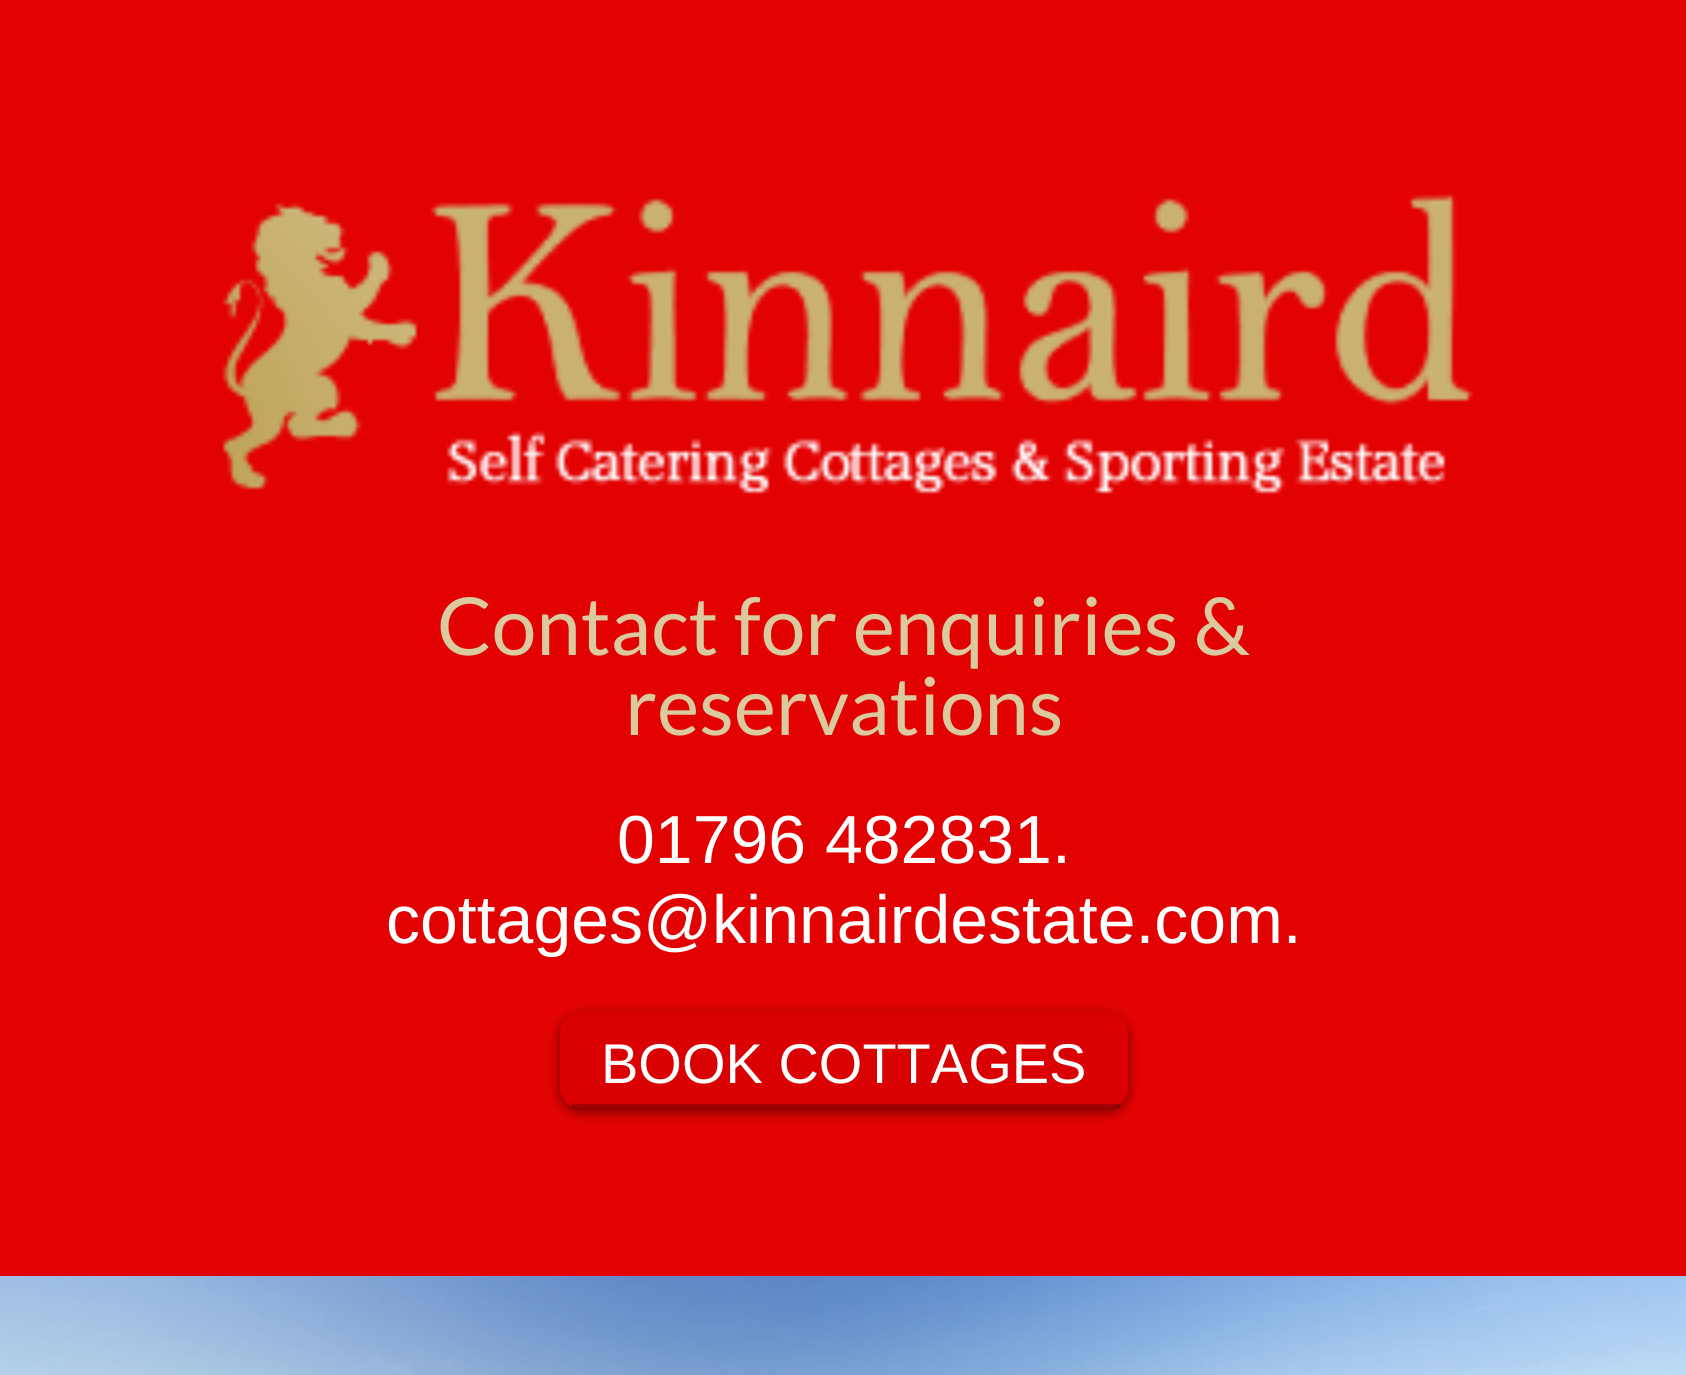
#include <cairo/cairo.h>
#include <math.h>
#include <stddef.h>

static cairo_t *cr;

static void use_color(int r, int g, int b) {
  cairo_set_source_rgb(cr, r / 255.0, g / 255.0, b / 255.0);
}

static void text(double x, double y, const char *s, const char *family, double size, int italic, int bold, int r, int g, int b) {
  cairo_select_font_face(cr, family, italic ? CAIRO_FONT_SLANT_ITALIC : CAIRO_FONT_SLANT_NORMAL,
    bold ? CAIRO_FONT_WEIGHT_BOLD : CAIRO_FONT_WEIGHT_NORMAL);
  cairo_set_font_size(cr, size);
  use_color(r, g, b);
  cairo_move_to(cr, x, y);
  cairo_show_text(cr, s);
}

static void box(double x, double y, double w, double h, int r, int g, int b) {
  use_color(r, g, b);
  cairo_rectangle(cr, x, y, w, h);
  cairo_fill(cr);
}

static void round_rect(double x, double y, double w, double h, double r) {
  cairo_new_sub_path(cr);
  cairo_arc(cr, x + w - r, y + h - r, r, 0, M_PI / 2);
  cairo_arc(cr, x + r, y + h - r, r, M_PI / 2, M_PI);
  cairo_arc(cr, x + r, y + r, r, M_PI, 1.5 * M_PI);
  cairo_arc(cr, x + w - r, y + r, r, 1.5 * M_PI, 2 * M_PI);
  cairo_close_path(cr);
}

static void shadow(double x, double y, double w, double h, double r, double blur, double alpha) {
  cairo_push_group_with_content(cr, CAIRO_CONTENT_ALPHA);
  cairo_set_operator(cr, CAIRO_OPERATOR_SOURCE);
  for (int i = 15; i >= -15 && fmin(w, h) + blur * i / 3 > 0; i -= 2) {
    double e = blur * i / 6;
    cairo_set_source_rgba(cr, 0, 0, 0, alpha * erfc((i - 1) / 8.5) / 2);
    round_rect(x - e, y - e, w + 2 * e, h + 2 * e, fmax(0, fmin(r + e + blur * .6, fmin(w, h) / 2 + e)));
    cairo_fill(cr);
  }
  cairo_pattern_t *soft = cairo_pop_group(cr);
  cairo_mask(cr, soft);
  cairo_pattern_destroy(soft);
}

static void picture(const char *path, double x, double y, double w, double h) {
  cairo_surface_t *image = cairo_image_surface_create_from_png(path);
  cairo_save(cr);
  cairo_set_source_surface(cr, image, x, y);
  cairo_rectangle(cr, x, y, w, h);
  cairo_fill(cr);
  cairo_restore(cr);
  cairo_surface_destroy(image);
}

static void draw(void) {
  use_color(255, 255, 255);
  cairo_paint(cr);
  box(0, 0, 1686, 1276, 227, 2, 2);
  picture("img_01.png", 222, 194, 1252, 300);
  use_color(0, 0, 0);
  shadow(560, 1016, 568, 96, 20, 6, 0.5);
  use_color(217, 1, 1);
  round_rect(560, 1012, 568, 96, 20);
  cairo_fill(cr);
  cairo_set_source_rgba(cr, 0, 0, 0, 0.25);
  cairo_rectangle(cr, 572, 1104, 548, 4);
  cairo_fill(cr);
  picture("img_02.png", 0, 1276, 1686, 99);
  text(437, 655, "Contact for enquiries &", "Lato", 80, 0, 0, 218, 202, 158);
  text(625, 735, "reservations", "Lato", 80, 0, 0, 218, 202, 158);
  text(617, 863, "01796 482831.", "Liberation Sans", 68, 0, 0, 255, 255, 255);
  text(386, 943, "cottages@kinnairdestate.com.", "Liberation Sans", 68, 0, 0, 255, 255, 255);
  text(601, 1083, "BOOK COTTAGES", "Liberation Sans", 56, 0, 0, 255, 255, 255);
}

int main(void) {
  cairo_surface_t *surface = cairo_image_surface_create(CAIRO_FORMAT_RGB24, 1686, 1375);
  cr = cairo_create(surface);
  cairo_font_options_t *options = cairo_font_options_create();
  cairo_font_options_set_hint_metrics(options, CAIRO_HINT_METRICS_OFF);
  cairo_font_options_set_hint_style(options, CAIRO_HINT_STYLE_NONE);
  cairo_set_font_options(cr, options);
  cairo_set_miter_limit(cr, 4);
  draw();
  cairo_surface_write_to_png(surface, "out.png");
  cairo_font_options_destroy(options);
  cairo_destroy(cr);
  cairo_surface_destroy(surface);
  return 0;
}
